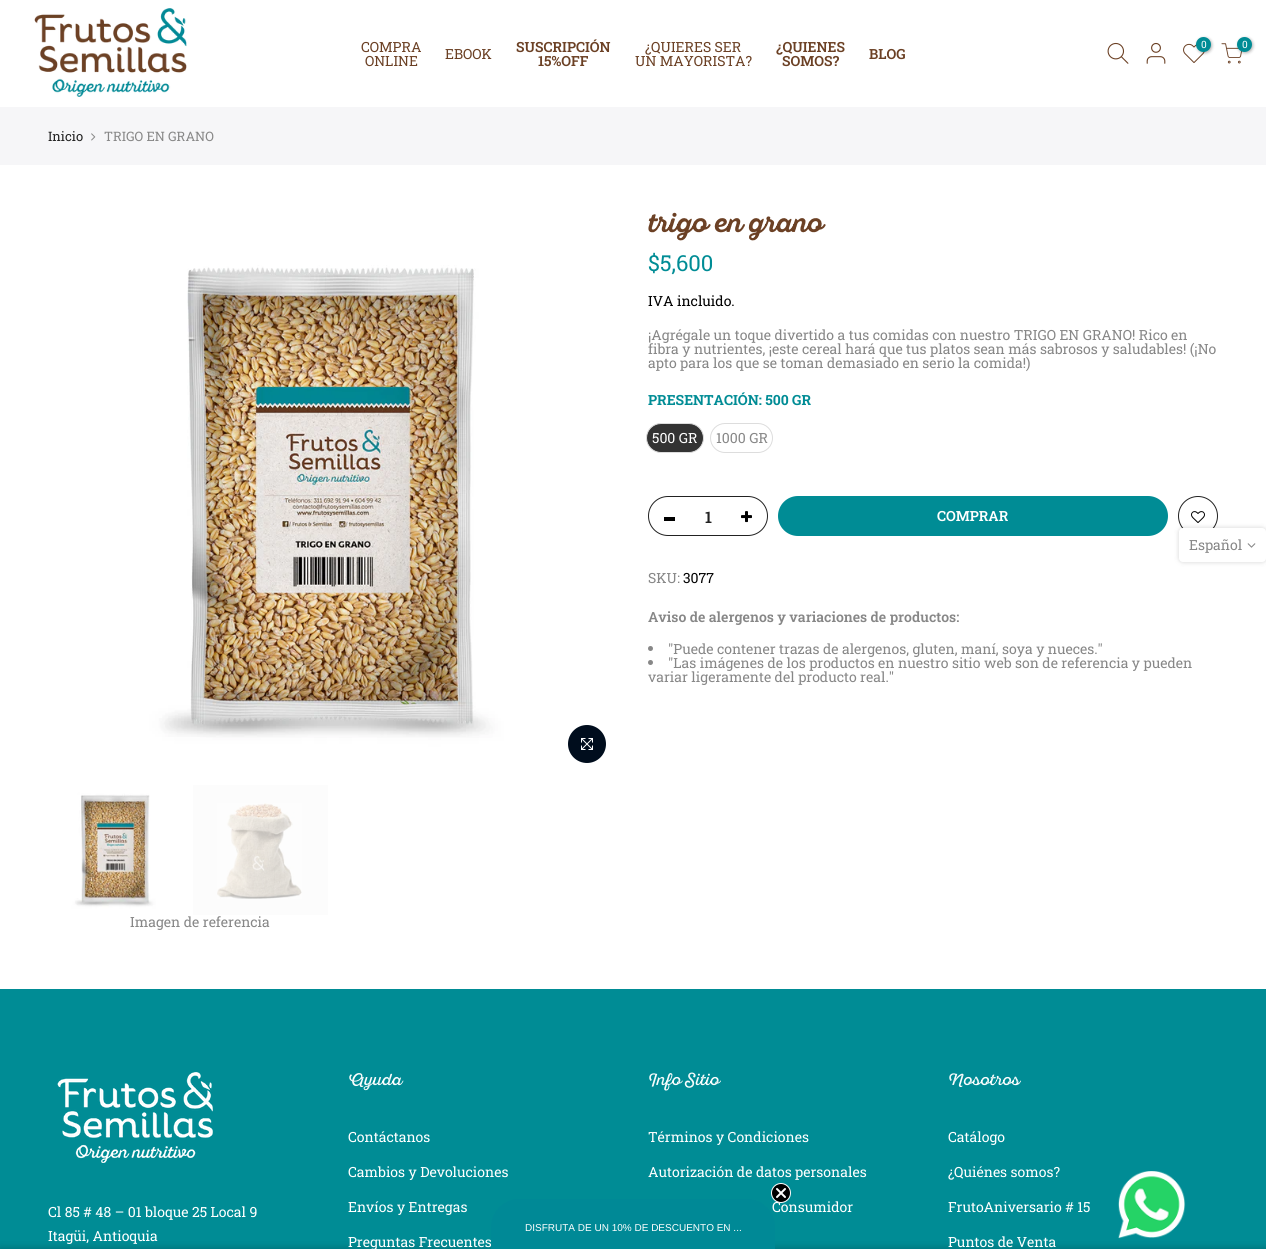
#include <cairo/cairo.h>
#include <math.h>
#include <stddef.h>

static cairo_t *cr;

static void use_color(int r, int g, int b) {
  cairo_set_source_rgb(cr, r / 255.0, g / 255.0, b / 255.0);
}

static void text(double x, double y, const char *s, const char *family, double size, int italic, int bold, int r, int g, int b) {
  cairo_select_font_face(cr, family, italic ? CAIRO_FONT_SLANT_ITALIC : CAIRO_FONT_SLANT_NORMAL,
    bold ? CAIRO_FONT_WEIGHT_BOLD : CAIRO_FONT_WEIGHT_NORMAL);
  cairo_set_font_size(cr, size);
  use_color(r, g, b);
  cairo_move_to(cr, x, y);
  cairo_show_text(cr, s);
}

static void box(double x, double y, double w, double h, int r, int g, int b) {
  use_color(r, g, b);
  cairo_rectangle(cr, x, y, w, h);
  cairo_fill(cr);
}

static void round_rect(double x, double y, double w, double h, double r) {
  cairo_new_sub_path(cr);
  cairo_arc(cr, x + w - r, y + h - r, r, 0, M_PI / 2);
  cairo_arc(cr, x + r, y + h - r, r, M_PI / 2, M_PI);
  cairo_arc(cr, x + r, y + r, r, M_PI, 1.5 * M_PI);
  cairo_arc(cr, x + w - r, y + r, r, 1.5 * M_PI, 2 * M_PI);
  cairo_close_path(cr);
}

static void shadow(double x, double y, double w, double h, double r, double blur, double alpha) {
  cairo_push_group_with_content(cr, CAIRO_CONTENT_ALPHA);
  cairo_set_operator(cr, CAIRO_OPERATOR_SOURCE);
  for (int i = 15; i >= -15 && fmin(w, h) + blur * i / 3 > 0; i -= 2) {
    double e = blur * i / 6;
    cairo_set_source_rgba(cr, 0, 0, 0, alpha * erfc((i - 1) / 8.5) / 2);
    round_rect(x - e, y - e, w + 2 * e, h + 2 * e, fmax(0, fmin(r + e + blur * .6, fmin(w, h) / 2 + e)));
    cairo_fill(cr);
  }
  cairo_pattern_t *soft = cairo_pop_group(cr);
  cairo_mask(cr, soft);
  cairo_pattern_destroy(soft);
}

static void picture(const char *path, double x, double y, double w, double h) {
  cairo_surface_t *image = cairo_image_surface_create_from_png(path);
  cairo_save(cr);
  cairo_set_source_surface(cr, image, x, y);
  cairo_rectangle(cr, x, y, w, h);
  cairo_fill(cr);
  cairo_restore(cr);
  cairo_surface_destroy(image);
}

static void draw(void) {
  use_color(255, 255, 255);
  cairo_paint(cr);
  picture("img_01.png", 34, 8, 153, 89);
  picture("img_02.png", 1107, 42, 22, 22);
  picture("img_03.png", 1146, 42, 20, 22);
  picture("img_04.png", 1183, 43, 22, 20);
  use_color(0, 0, 0);
  shadow(1197, 38, 15, 15, 7.5, 1.5, 0.3);
  use_color(0, 140, 149);
  cairo_arc(cr, 1203.5, 44.5, 7.5, 0, 2 * M_PI);
  cairo_fill(cr);
  picture("img_05.png", 1221, 43, 21, 21);
  use_color(0, 0, 0);
  shadow(1238, 38, 15, 15, 7.5, 1.5, 0.3);
  use_color(0, 140, 149);
  cairo_arc(cr, 1244.5, 44.5, 7.5, 0, 2 * M_PI);
  cairo_fill(cr);
  box(0, 107, 1266, 58, 246, 246, 248);
  picture("img_06.png", 91, 133, 5, 8);
  picture("img_07.png", 48, 205, 570, 570);
  use_color(0, 13, 29);
  cairo_arc(cr, 587, 744, 19, 0, 2 * M_PI);
  cairo_fill(cr);
  picture("img_08.png", 581, 738, 12, 12);
  picture("img_09.png", 48, 785, 135, 130);
  box(193, 785, 135, 130, 252, 252, 252);
  picture("img_10.png", 217, 803, 85, 96);
  use_color(51, 51, 51);
  round_rect(646.5, 423.5, 57, 29, 14.5);
  cairo_fill_preserve(cr);
  use_color(221, 221, 221);
  cairo_set_line_width(cr, 1);
  cairo_stroke(cr);
  round_rect(710.5, 423.5, 62, 29, 14.5);
  cairo_stroke(cr);
  round_rect(648.5, 496.5, 119, 39, 19.5);
  use_color(34, 34, 34);
  cairo_stroke(cr);
  box(664, 517, 11, 4, 0, 0, 0);
  picture("img_11.png", 741, 511, 11, 12);
  use_color(0, 140, 149);
  round_rect(778, 496, 390, 40, 20);
  cairo_fill(cr);
  cairo_arc(cr, 1198, 516, 19.5, 0, 2 * M_PI);
  use_color(34, 34, 34);
  cairo_stroke(cr);
  picture("img_12.png", 1191, 511, 14, 12);
  cairo_new_path(cr);
  cairo_move_to(cr, 1192, 511);
  cairo_curve_to(cr, 1194, 509, 1197, 508, 1199.5, 508.5);
  cairo_curve_to(cr, 1209.5, 510.5, 1208, 525.5, 1198, 525.5);
  cairo_curve_to(cr, 1196, 525.5, 1193.5, 524.5, 1192, 523);
  cairo_move_to(cr, 1192, 523);
  cairo_curve_to(cr, 1188.5, 519.5, 1188.5, 514.5, 1192, 511);
  use_color(255, 255, 255);
  cairo_stroke(cr);
  use_color(135, 135, 135);
  cairo_arc(cr, 650.5, 648.5, 2.5, 0, 2 * M_PI);
  cairo_fill(cr);
  cairo_arc(cr, 650.5, 662.5, 2.5, 0, 2 * M_PI);
  cairo_fill(cr);
  box(0, 989, 1266, 260, 0, 140, 149);
  picture("img_13.png", 57, 1072, 156, 91);
  use_color(0, 0, 0);
  shadow(1179, 528, 87, 34, 4, 2.5, 0.17);
  use_color(255, 255, 255);
  round_rect(1179, 528, 87, 34, 4);
  cairo_fill(cr);
  picture("img_14.png", 1247, 543, 9, 5);
  use_color(0, 0, 0);
  shadow(0, 1249, 1266, 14, 0, 4.5, 0.12);
  shadow(0, 1249, 1266, 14, 0, 4.5, 0.14);
  picture("img_16.png", 1118, 1171, 68, 68);
  text(361, 52, "COMPRA", "Roboto Slab", 14, 0, 0, 107, 64, 36);
  text(365, 66, "ONLINE", "Roboto Slab", 14, 0, 0, 107, 64, 36);
  text(445, 59, "EBOOK", "Roboto Slab", 14, 0, 0, 107, 64, 36);
  text(516, 52, "SUSCRIPCIÓN", "Roboto Slab SemiBold", 14, 0, 0, 107, 64, 36);
  text(538, 66, "15%OFF", "Roboto Slab SemiBold", 14, 0, 0, 107, 64, 36);
  text(645, 52, "¿QUIERES SER", "Roboto Slab", 14, 0, 0, 107, 64, 36);
  text(635, 66, "UN MAYORISTA?", "Roboto Slab", 14, 0, 0, 107, 64, 36);
  text(776, 52, "¿QUIENES", "Roboto Slab SemiBold", 14, 0, 0, 107, 64, 36);
  text(782, 66, "SOMOS?", "Roboto Slab SemiBold", 14, 0, 0, 107, 64, 36);
  text(869, 59, "BLOG", "Roboto Slab SemiBold", 14, 0, 0, 107, 64, 36);
  text(1201, 48, "0", "Roboto Slab", 10, 0, 0, 255, 255, 255);
  text(1242, 48, "0", "Roboto Slab", 10, 0, 0, 255, 255, 255);
  text(48, 141, "Inicio", "Roboto Slab", 13, 0, 0, 34, 34, 34);
  text(104, 141, "TRIGO EN GRANO", "Roboto Slab", 13, 0, 0, 135, 135, 135);
  text(648, 232, "trigo en grano", "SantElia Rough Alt", 26, 0, 1, 107, 64, 36);
  text(648, 271, "$5,600", "Roboto Slab", 22, 0, 0, 0, 140, 149);
  text(648, 306, "IVA incluido.", "Roboto Slab", 14, 0, 0, 0, 0, 0);
  text(648, 340, "¡Agrégale un toque divertido a tus comidas con nuestro TRIGO EN GRANO! Rico en", "Roboto Slab", 14, 0, 0, 135, 135, 135);
  text(648, 354, "fibra y nutrientes, ¡este cereal hará que tus platos sean más sabrosos y saludables! (¡No", "Roboto Slab", 14, 0, 0, 135, 135, 135);
  text(648, 368, "apto para los que se toman demasiado en serio la comida!)", "Roboto Slab", 14, 0, 0, 135, 135, 135);
  text(648, 405, "PRESENTACIÓN: 500 GR", "Roboto Slab", 14, 0, 1, 0, 140, 149);
  text(652, 443, "500 GR", "Roboto Slab", 14, 0, 0, 255, 255, 255);
  text(716, 443, "1000 GR", "Roboto Slab", 14, 0, 0, 135, 135, 135);
  text(705, 523, "1", "Roboto Slab SemiBold", 16, 0, 0, 34, 34, 34);
  text(937, 521, "COMPRAR", "Roboto Slab SemiBold", 14, 0, 0, 255, 255, 255);
  text(648, 583, "SKU:", "Roboto Slab", 14, 0, 0, 135, 135, 135);
  text(683, 583, "3077", "Roboto Slab", 14, 0, 0, 0, 0, 0);
  text(648, 622, "Aviso de alergenos y variaciones de productos:", "Roboto Slab SemiBold", 14, 0, 0, 135, 135, 135);
  text(668, 654, "\"Puede contener trazas de alergenos, gluten, maní, soya y nueces.\"", "Roboto Slab", 14, 0, 0, 135, 135, 135);
  text(668, 668, "\"Las imágenes de los productos en nuestro sitio web son de referencia y pueden", "Roboto Slab", 14, 0, 0, 135, 135, 135);
  text(648, 682, "variar ligeramente del producto real.\"", "Roboto Slab", 14, 0, 0, 135, 135, 135);
  text(130, 927, "Imagen de referencia", "Roboto Slab", 14, 0, 0, 135, 135, 135);
  text(48, 1217, "Cl 85 # 48 – 01 bloque 25 Local 9", "Roboto Slab", 14, 0, 0, 255, 255, 255);
  text(48, 1241, "Itagüi, Antioquia", "Roboto Slab", 14, 0, 0, 255, 255, 255);
  text(348, 1085, "Ayuda", "SantElia Rough Alt", 16, 0, 0, 255, 255, 255);
  text(348, 1142, "Contáctanos", "Roboto Slab", 14, 0, 0, 255, 255, 255);
  text(348, 1177, "Cambios y Devoluciones", "Roboto Slab", 14, 0, 0, 255, 255, 255);
  text(348, 1212, "Envíos y Entregas", "Roboto Slab", 14, 0, 0, 255, 255, 255);
  text(348, 1247, "Preguntas Frecuentes", "Roboto Slab", 14, 0, 0, 255, 255, 255);
  text(648, 1085, "Info Sitio", "SantElia Rough Alt", 16, 0, 0, 255, 255, 255);
  text(648, 1142, "Términos y Condiciones", "Roboto Slab", 14, 0, 0, 255, 255, 255);
  text(648, 1177, "Autorización de datos personales", "Roboto Slab", 14, 0, 0, 255, 255, 255);
  text(772, 1212, "Consumidor", "Roboto Slab", 14, 0, 0, 255, 255, 255);
  text(948, 1085, "Nosotros", "SantElia Rough Alt", 16, 0, 0, 255, 255, 255);
  text(948, 1142, "Catálogo", "Roboto Slab", 14, 0, 0, 255, 255, 255);
  text(948, 1177, "¿Quiénes somos?", "Roboto Slab", 14, 0, 0, 255, 255, 255);
  text(948, 1212, "FrutoAniversario # 15", "Roboto Slab", 14, 0, 0, 255, 255, 255);
  text(948, 1247, "Puntos de Venta", "Roboto Slab", 14, 0, 0, 255, 255, 255);
  text(1189, 550, "Español", "Roboto Slab", 14, 0, 0, 135, 135, 135);
  use_color(0, 137, 150);
  cairo_new_path(cr);
  cairo_move_to(cr, 519, 1199);
  cairo_line_to(cr, 747, 1199);
  cairo_curve_to(cr, 762.5, 1199, 775, 1211.5, 775, 1227);
  cairo_line_to(cr, 775, 1249);
  cairo_line_to(cr, 491, 1249);
  cairo_line_to(cr, 491, 1227);
  cairo_curve_to(cr, 491, 1211.5, 503.5, 1199, 519, 1199);
  cairo_close_path(cr);
  cairo_fill(cr);
  picture("img_15.png", 771, 1183, 20, 20);
  text(525, 1231, "DISFRUTA DE UN 10% DE DESCUENTO EN ...", "Liberation Sans", 10, 0, 0, 255, 255, 255);
}

int main(void) {
  cairo_surface_t *surface = cairo_image_surface_create(CAIRO_FORMAT_RGB24, 1266, 1249);
  cr = cairo_create(surface);
  cairo_font_options_t *options = cairo_font_options_create();
  cairo_font_options_set_hint_metrics(options, CAIRO_HINT_METRICS_OFF);
  cairo_font_options_set_hint_style(options, CAIRO_HINT_STYLE_NONE);
  cairo_set_font_options(cr, options);
  cairo_set_miter_limit(cr, 4);
  draw();
  cairo_surface_write_to_png(surface, "out.png");
  cairo_font_options_destroy(options);
  cairo_destroy(cr);
  cairo_surface_destroy(surface);
  return 0;
}
